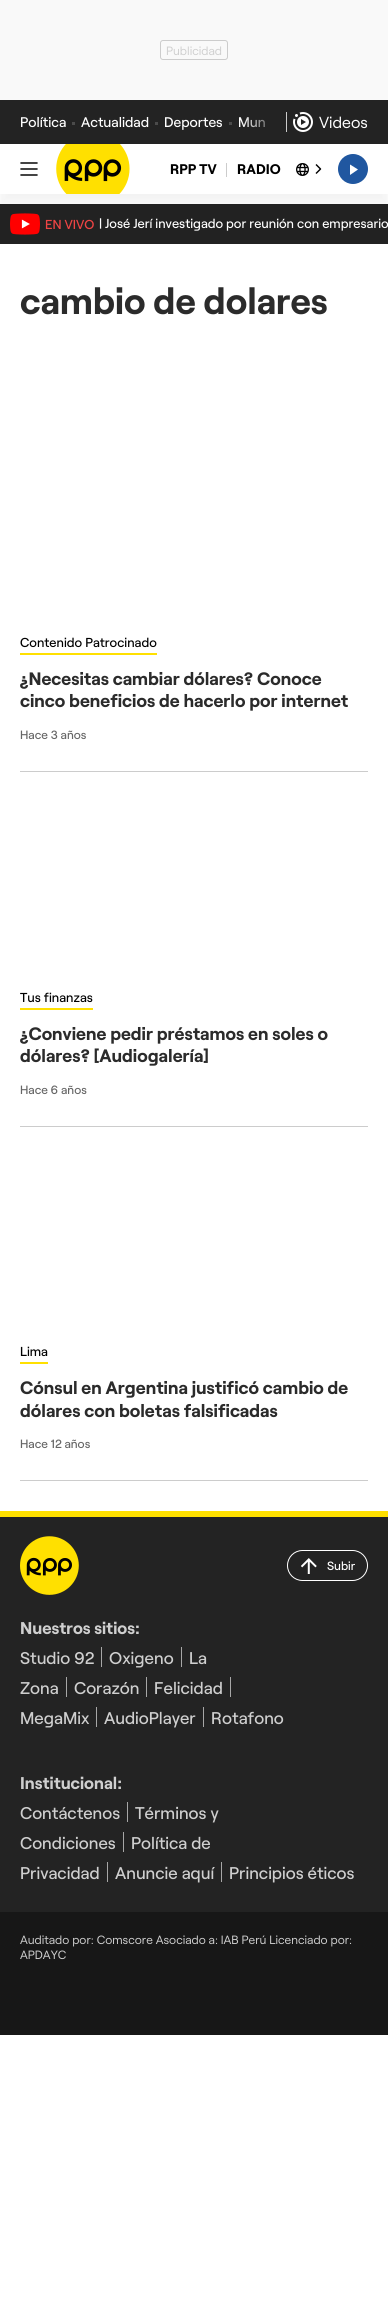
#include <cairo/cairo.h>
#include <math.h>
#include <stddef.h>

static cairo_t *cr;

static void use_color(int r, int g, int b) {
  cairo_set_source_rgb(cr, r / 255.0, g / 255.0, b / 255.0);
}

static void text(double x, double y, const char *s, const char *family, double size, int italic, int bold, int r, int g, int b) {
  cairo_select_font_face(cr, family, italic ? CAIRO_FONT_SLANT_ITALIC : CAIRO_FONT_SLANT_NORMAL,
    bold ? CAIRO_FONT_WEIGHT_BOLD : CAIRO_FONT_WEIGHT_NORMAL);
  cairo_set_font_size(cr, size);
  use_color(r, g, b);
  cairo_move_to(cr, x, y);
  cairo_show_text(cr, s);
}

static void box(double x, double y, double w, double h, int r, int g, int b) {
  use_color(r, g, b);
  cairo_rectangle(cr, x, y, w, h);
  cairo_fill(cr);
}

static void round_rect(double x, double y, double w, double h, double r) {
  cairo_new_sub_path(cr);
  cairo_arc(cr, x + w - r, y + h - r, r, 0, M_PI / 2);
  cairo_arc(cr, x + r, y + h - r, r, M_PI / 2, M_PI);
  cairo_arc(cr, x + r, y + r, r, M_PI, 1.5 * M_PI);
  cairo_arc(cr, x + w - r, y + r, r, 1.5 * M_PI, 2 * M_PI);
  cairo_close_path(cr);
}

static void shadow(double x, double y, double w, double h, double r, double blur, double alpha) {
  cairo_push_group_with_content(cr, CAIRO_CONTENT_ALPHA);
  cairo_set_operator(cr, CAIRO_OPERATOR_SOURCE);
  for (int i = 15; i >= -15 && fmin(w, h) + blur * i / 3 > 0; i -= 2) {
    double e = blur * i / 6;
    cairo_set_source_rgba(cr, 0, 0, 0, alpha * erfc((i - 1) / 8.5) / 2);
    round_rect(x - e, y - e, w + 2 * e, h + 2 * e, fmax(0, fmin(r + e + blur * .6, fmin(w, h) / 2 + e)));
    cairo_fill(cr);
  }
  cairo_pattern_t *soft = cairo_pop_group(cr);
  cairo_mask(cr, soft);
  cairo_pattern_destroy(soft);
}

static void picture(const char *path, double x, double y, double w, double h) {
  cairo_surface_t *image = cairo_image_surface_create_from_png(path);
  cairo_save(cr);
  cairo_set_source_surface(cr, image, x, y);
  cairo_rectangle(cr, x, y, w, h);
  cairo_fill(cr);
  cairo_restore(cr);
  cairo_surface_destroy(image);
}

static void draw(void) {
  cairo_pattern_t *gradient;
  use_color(255, 255, 255);
  cairo_paint(cr);
  box(0, 0, 388, 100, 249, 249, 249);
  round_rect(160.5, 40.5, 67, 19, 2.5);
  use_color(204, 204, 204);
  cairo_set_line_width(cr, 1);
  cairo_stroke(cr);
  box(0, 100, 388, 44, 35, 35, 35);
  box(72, 122, 3, 3, 75, 75, 75);
  box(155, 122, 3, 3, 75, 75, 75);
  box(229, 122, 3, 3, 75, 75, 75);
  box(286, 112, 1, 20, 204, 204, 204);
  picture("img_01.png", 293, 112, 20, 20);
  box(0, 204, 388, 40, 34, 34, 34);
  picture("img_05.png", 10, 213, 30, 22);
  cairo_save(cr);
  cairo_rectangle(cr, 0, 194, 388, 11);
  cairo_clip(cr);
  use_color(0, 0, 0);
  shadow(0, 154, 388, 50, 0, 5, 0.05);
  cairo_restore(cr);
  cairo_new_path(cr);
  cairo_move_to(cr, 21, 163);
  cairo_line_to(cr, 37, 163);
  cairo_move_to(cr, 21, 169);
  cairo_line_to(cr, 37, 169);
  cairo_move_to(cr, 21, 175);
  cairo_line_to(cr, 37, 175);
  use_color(0, 0, 0);
  cairo_set_line_width(cr, 1.5);
  cairo_set_line_cap(cr, CAIRO_LINE_CAP_ROUND);
  cairo_set_line_join(cr, CAIRO_LINE_JOIN_ROUND);
  cairo_stroke(cr);
  picture("img_02.png", 56, 144, 74, 50);
  box(226, 163, 1, 14, 204, 204, 204);
  picture("img_03.png", 296, 163, 13, 13);
  picture("img_04.png", 315, 164, 7, 10);
  use_color(32, 87, 160);
  cairo_arc(cr, 353, 169, 15, 0, 2 * M_PI);
  cairo_fill(cr);
  use_color(255, 255, 255);
  cairo_new_path(cr);
  cairo_move_to(cr, 350, 164.5);
  cairo_line_to(cr, 350, 175);
  cairo_line_to(cr, 358, 169.5);
  cairo_close_path(cr);
  cairo_fill(cr);
  box(20, 771, 348, 1, 204, 204, 204);
  box(20, 653, 137, 2, 255, 224, 0);
  box(20, 1126, 348, 1, 204, 204, 204);
  box(20, 1008, 73, 2, 255, 224, 0);
  box(20, 1480, 348, 1, 204, 204, 204);
  box(20, 1362, 28, 2, 255, 224, 0);
  box(0, 1517, 388, 395, 35, 35, 35);
  box(0, 1511, 388, 6, 255, 224, 0);
  picture("img_06.png", 20, 1536, 59, 59);
  round_rect(287.5, 1550.5, 80, 30, 15);
  use_color(255, 255, 255);
  cairo_set_line_width(cr, 1);
  cairo_set_line_cap(cr, CAIRO_LINE_CAP_BUTT);
  cairo_set_line_join(cr, CAIRO_LINE_JOIN_MITER);
  cairo_stroke(cr);
  picture("img_07.png", 301, 1558, 16, 16);
  box(101, 1647, 1, 20, 167, 167, 167);
  box(181, 1647, 1, 20, 167, 167, 167);
  box(66, 1677, 1, 20, 167, 167, 167);
  box(146, 1677, 1, 20, 167, 167, 167);
  box(230, 1677, 1, 20, 167, 167, 167);
  box(96, 1707, 1, 20, 167, 167, 167);
  box(203, 1707, 1, 20, 167, 167, 167);
  box(127, 1802, 1, 20, 167, 167, 167);
  box(123, 1832, 1, 20, 167, 167, 167);
  box(107, 1862, 1, 20, 167, 167, 167);
  box(221, 1862, 1, 20, 167, 167, 167);
  box(0, 1912, 388, 123, 23, 23, 23);
  text(166, 55, "Publicidad", "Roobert", 12, 0, 0, 207, 207, 207);
  text(20, 127, "Política", "Roobert Medium", 14, 0, 0, 255, 255, 255);
  text(81, 127, "Actualidad", "Roobert Medium", 14, 0, 0, 255, 255, 255);
  text(164, 127, "Deportes", "Roobert Medium", 14, 0, 0, 255, 255, 255);
  text(238, 127, "Mun", "Roobert Medium", 14, 0, 0, 255, 255, 255);
  gradient = cairo_pattern_create_linear(241, 122, 281, 122);
  cairo_pattern_add_color_stop_rgba(gradient, 0, 0.137, 0.137, 0.137, 0);
  cairo_pattern_add_color_stop_rgba(gradient, 1, 0.137, 0.137, 0.137, 1);
  cairo_set_source(cr, gradient);
  cairo_pattern_destroy(gradient);
  cairo_rectangle(cr, 242, 117, 23, 11);
  cairo_fill(cr);
  text(319, 128, "Videos", "Roobert", 16, 0, 0, 255, 255, 255);
  text(170, 174, "RPP TV", "Roobert", 14, 0, 1, 0, 0, 0);
  text(237, 174, "RADIO", "Roobert", 14, 0, 1, 0, 0, 0);
  text(45, 229, "EN VIVO", "Roobert Medium", 13, 0, 0, 239, 68, 68);
  text(99, 228, "| José Jerí investigado por reunión con empresario", "Roobert Medium", 13, 0, 0, 255, 255, 255);
  text(20, 314, "cambio de dolares", "Roobert", 37, 0, 1, 43, 43, 43);
  text(20, 647, "Contenido Patrocinado", "Roobert Medium", 13, 0, 0, 0, 0, 0);
  text(20, 685, "¿Necesitas cambiar dólares? Conoce", "Roobert", 18, 0, 1, 43, 43, 43);
  text(20, 707, "cinco beneficios de hacerlo por internet", "Roobert", 18, 0, 1, 43, 43, 43);
  text(20, 739, "Hace 3 años", "Roobert Medium", 12, 0, 0, 102, 102, 102);
  text(20, 1002, "Tus finanzas", "Roobert Medium", 13, 0, 0, 0, 0, 0);
  text(20, 1040, "¿Conviene pedir préstamos en soles o", "Roobert", 18, 0, 1, 43, 43, 43);
  text(20, 1062, "dólares? [Audiogalería]", "Roobert", 18, 0, 1, 43, 43, 43);
  text(20, 1094, "Hace 6 años", "Roobert Medium", 12, 0, 0, 102, 102, 102);
  text(20, 1356, "Lima", "Roobert Medium", 13, 0, 0, 0, 0, 0);
  text(20, 1394, "Cónsul en Argentina justificó cambio de", "Roobert", 18, 0, 1, 43, 43, 43);
  text(20, 1417, "dólares con boletas falsificadas", "Roobert", 18, 0, 1, 43, 43, 43);
  text(20, 1448, "Hace 12 años", "Roobert Medium", 12, 0, 0, 102, 102, 102);
  text(327, 1570, "Subir", "Roobert Medium", 12, 0, 0, 255, 255, 255);
  text(20, 1634, "Nuestros sitios:", "Roobert", 17, 0, 1, 207, 207, 207);
  text(20, 1664, "Studio 92", "Roobert Medium", 17, 0, 0, 207, 207, 207);
  text(109, 1664, "Oxigeno", "Roobert Medium", 17, 0, 0, 207, 207, 207);
  text(189, 1664, "La", "Roobert Medium", 17, 0, 0, 207, 207, 207);
  text(20, 1694, "Zona", "Roobert Medium", 17, 0, 0, 207, 207, 207);
  text(74, 1694, "Corazón", "Roobert Medium", 17, 0, 0, 207, 207, 207);
  text(154, 1694, "Felicidad", "Roobert Medium", 17, 0, 0, 207, 207, 207);
  text(20, 1724, "MegaMix", "Roobert Medium", 17, 0, 0, 207, 207, 207);
  text(104, 1724, "AudioPlayer", "Roobert Medium", 17, 0, 0, 207, 207, 207);
  text(211, 1724, "Rotafono", "Roobert Medium", 17, 0, 0, 207, 207, 207);
  text(20, 1789, "Institucional:", "Roobert", 17, 0, 1, 207, 207, 207);
  text(20, 1819, "Contáctenos", "Roobert Medium", 17, 0, 0, 207, 207, 207);
  text(135, 1819, "Términos y", "Roobert Medium", 17, 0, 0, 207, 207, 207);
  text(20, 1849, "Condiciones", "Roobert Medium", 17, 0, 0, 207, 207, 207);
  text(131, 1849, "Política de", "Roobert Medium", 17, 0, 0, 207, 207, 207);
  text(20, 1879, "Privacidad", "Roobert Medium", 17, 0, 0, 207, 207, 207);
  text(115, 1879, "Anuncie aquí", "Roobert Medium", 17, 0, 0, 207, 207, 207);
  text(229, 1879, "Principios éticos", "Roobert Medium", 17, 0, 0, 207, 207, 207);
  text(20, 1944, "Auditado por: Comscore Asociado a: IAB Perú Licenciado por:", "Roobert", 12, 0, 0, 207, 207, 207);
  text(20, 1959, "APDAYC", "Roobert", 12, 0, 0, 207, 207, 207);
}

int main(void) {
  cairo_surface_t *surface = cairo_image_surface_create(CAIRO_FORMAT_RGB24, 388, 2324);
  cr = cairo_create(surface);
  cairo_font_options_t *options = cairo_font_options_create();
  cairo_font_options_set_hint_metrics(options, CAIRO_HINT_METRICS_OFF);
  cairo_font_options_set_hint_style(options, CAIRO_HINT_STYLE_NONE);
  cairo_set_font_options(cr, options);
  cairo_set_miter_limit(cr, 4);
  draw();
  cairo_surface_write_to_png(surface, "out.png");
  cairo_font_options_destroy(options);
  cairo_destroy(cr);
  cairo_surface_destroy(surface);
  return 0;
}
